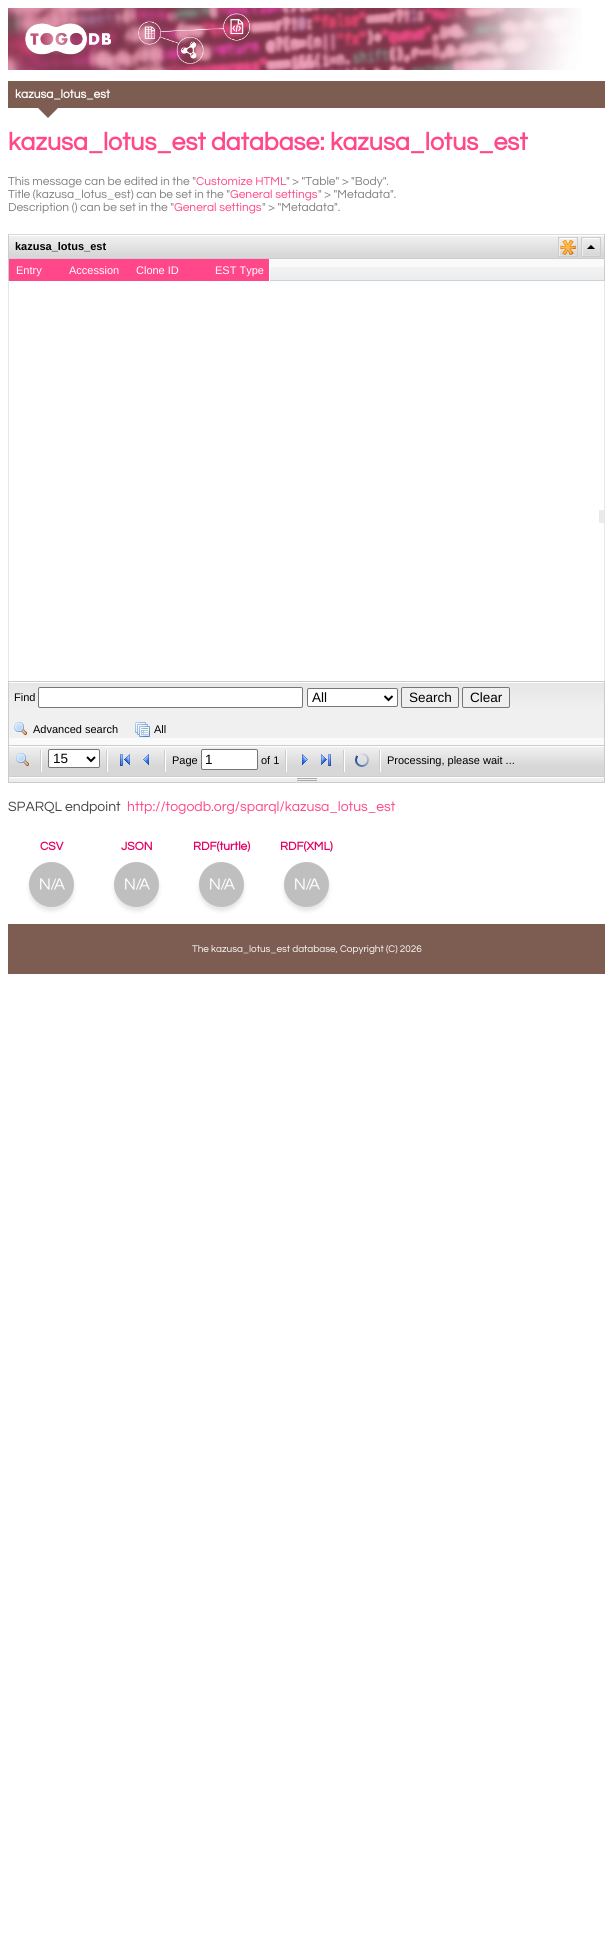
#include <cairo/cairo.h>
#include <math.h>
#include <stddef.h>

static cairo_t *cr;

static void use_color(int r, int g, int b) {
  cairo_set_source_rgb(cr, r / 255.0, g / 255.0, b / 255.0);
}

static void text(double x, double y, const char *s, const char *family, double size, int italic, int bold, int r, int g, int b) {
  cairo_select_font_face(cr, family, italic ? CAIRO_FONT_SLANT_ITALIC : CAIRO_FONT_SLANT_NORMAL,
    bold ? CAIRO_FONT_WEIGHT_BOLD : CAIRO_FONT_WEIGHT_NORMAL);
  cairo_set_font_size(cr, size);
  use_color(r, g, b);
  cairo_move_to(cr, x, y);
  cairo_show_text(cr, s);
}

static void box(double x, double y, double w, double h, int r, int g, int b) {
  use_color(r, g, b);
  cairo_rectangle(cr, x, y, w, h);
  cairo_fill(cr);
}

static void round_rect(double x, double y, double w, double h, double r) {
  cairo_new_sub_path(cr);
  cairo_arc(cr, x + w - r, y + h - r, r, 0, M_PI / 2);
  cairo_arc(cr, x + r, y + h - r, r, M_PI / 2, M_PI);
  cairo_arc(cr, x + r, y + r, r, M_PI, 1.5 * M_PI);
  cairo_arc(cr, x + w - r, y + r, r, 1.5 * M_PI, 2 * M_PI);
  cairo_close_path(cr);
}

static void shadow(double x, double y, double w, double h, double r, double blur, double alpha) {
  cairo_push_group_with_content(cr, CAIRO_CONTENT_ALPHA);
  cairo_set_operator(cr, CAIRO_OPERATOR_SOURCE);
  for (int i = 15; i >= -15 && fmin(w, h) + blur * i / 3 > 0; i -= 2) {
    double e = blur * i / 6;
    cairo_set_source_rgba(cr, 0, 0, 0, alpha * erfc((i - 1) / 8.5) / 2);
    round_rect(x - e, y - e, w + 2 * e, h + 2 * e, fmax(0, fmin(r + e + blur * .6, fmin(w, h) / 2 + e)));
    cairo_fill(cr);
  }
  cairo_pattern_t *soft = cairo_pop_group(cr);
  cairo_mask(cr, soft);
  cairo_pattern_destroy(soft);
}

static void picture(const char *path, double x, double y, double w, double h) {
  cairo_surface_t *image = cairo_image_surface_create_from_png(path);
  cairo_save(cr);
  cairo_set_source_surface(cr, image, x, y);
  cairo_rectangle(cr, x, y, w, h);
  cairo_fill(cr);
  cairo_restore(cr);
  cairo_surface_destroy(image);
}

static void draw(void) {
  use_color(255, 255, 255);
  cairo_paint(cr);
  picture("img_01.png", 8, 8, 574, 62);
  box(8, 81, 597, 27, 125, 92, 81);
  cairo_new_path(cr);
  cairo_move_to(cr, 38, 108);
  cairo_line_to(cr, 58, 108);
  cairo_line_to(cr, 48, 118);
  cairo_close_path(cr);
  cairo_fill(cr);
  picture("img_02.png", 9, 234, 595, 24);
  box(604, 234, 1, 24, 204, 204, 204);
  box(8, 234, 1, 24, 204, 204, 204);
  cairo_rectangle(cr, 558.5, 237.5, 19, 19);
  cairo_set_line_width(cr, 1);
  cairo_stroke(cr);
  picture("img_03.png", 560, 240, 16, 15);
  box(559, 238, 17, 1, 255, 255, 255);
  box(559, 255, 17, 1, 221, 221, 221);
  box(559, 238, 1, 18, 238, 238, 238);
  cairo_rectangle(cr, 581.5, 237.5, 19, 19);
  use_color(204, 204, 204);
  cairo_stroke(cr);
  picture("img_04.png", 587, 245, 8, 4);
  box(582, 238, 17, 1, 255, 255, 255);
  box(582, 255, 17, 1, 221, 221, 221);
  box(582, 238, 1, 18, 238, 238, 238);
  box(270, 259, 334, 8, 250, 250, 250);
  picture("img_05.png", 270, 267, 334, 14);
  box(8, 258, 597, 1, 204, 204, 204);
  box(604, 258, 1, 23, 204, 204, 204);
  box(8, 258, 1, 23, 204, 204, 204);
  box(9, 259, 260, 22, 255, 71, 138);
  box(604, 281, 1, 400, 230, 230, 230);
  box(8, 681, 597, 1, 204, 204, 204);
  box(8, 281, 1, 400, 230, 230, 230);
  box(599, 510, 5, 13, 235, 234, 230);
  box(9, 738, 595, 7, 250, 250, 250);
  picture("img_06.png", 9, 682, 595, 56);
  box(604, 682, 1, 101, 204, 204, 204);
  box(8, 745, 597, 1, 204, 204, 204);
  box(8, 682, 1, 64, 204, 204, 204);
  use_color(255, 255, 255);
  round_rect(38.5, 687.5, 264, 20, 1.5);
  cairo_fill_preserve(cr);
  use_color(118, 118, 118);
  cairo_stroke(cr);
  use_color(255, 255, 255);
  round_rect(307.5, 688.5, 90, 18, 1.5);
  cairo_fill_preserve(cr);
  use_color(118, 118, 118);
  cairo_stroke(cr);
  cairo_new_path(cr);
  cairo_move_to(cr, 384.5, 696);
  cairo_line_to(cr, 388.5, 700);
  cairo_line_to(cr, 392.5, 696);
  use_color(0, 0, 0);
  cairo_set_line_width(cr, 2);
  cairo_stroke(cr);
  use_color(239, 239, 239);
  round_rect(401.5, 687.5, 57, 20, 1.5);
  cairo_fill_preserve(cr);
  use_color(118, 118, 118);
  cairo_set_line_width(cr, 1);
  cairo_stroke(cr);
  use_color(239, 239, 239);
  round_rect(462.5, 687.5, 47, 20, 1.5);
  cairo_fill_preserve(cr);
  use_color(118, 118, 118);
  cairo_stroke(cr);
  picture("img_07.png", 14, 722, 13, 14);
  picture("img_08.png", 135, 722, 15, 15);
  picture("img_09.png", 9, 747, 595, 29);
  box(8, 776, 597, 1, 204, 204, 204);
  box(8, 746, 1, 31, 204, 204, 204);
  picture("img_10.png", 16, 753, 13, 14);
  box(41, 750, 1, 22, 255, 255, 255);
  box(40, 750, 1, 22, 204, 204, 204);
  use_color(255, 255, 255);
  round_rect(48.5, 749.5, 51, 18, 1.5);
  cairo_fill_preserve(cr);
  use_color(118, 118, 118);
  cairo_stroke(cr);
  cairo_new_path(cr);
  cairo_move_to(cr, 87, 757);
  cairo_line_to(cr, 91, 761);
  cairo_line_to(cr, 95, 757);
  use_color(0, 0, 0);
  cairo_set_line_width(cr, 2);
  cairo_stroke(cr);
  box(107, 750, 1, 22, 255, 255, 255);
  box(106, 750, 1, 22, 204, 204, 204);
  picture("img_11.png", 120, 754, 10, 12);
  picture("img_12.png", 143, 754, 6, 11);
  box(165, 750, 1, 22, 255, 255, 255);
  box(164, 750, 1, 22, 204, 204, 204);
  use_color(255, 255, 255);
  round_rect(201.5, 749.5, 56, 20, 1.5);
  cairo_fill_preserve(cr);
  use_color(118, 118, 118);
  cairo_set_line_width(cr, 1);
  cairo_stroke(cr);
  box(286, 750, 1, 22, 255, 255, 255);
  box(285, 750, 1, 22, 204, 204, 204);
  picture("img_13.png", 302, 754, 6, 11);
  picture("img_14.png", 321, 754, 10, 12);
  box(344, 750, 1, 22, 255, 255, 255);
  box(343, 750, 1, 22, 204, 204, 204);
  picture("img_15.png", 355, 753, 14, 14);
  box(380, 750, 1, 22, 255, 255, 255);
  box(379, 750, 1, 22, 204, 204, 204);
  picture("img_16.png", 9, 777, 595, 5);
  box(8, 782, 597, 1, 204, 204, 204);
  box(8, 777, 1, 6, 204, 204, 204);
  box(297, 778, 20, 1, 170, 170, 170);
  box(297, 780, 20, 1, 170, 170, 170);
  use_color(0, 0, 0);
  shadow(29, 866, 45, 45, 22.5, 2, 0.1);
  use_color(191, 191, 191);
  cairo_arc(cr, 51.5, 884.5, 22.5, 0, 2 * M_PI);
  cairo_fill(cr);
  picture("img_17.png", 40, 878, 25, 12);
  use_color(0, 0, 0);
  shadow(114, 866, 45, 45, 22.5, 2, 0.1);
  use_color(191, 191, 191);
  cairo_arc(cr, 136.5, 884.5, 22.5, 0, 2 * M_PI);
  cairo_fill(cr);
  picture("img_17.png", 125, 878, 25, 12);
  use_color(0, 0, 0);
  shadow(199, 866, 45, 45, 22.5, 2, 0.1);
  use_color(191, 191, 191);
  cairo_arc(cr, 221.5, 884.5, 22.5, 0, 2 * M_PI);
  cairo_fill(cr);
  picture("img_17.png", 210, 878, 25, 12);
  use_color(0, 0, 0);
  shadow(284, 866, 45, 45, 22.5, 2, 0.1);
  use_color(191, 191, 191);
  cairo_arc(cr, 306.5, 884.5, 22.5, 0, 2 * M_PI);
  cairo_fill(cr);
  picture("img_17.png", 295, 878, 25, 12);
  box(8, 924, 597, 50, 125, 92, 81);
  text(15, 98, "kazusa_lotus_est", "Questrial", 12, 0, 1, 255, 255, 255);
  text(8, 150, "kazusa_lotus_est database: kazusa_lotus_est", "Questrial", 25, 0, 1, 255, 71, 138);
  text(8, 185, "This message can be edited in the \"", "Questrial", 12, 0, 0, 128, 128, 128);
  text(196, 185, "Customize HTML", "Questrial", 12, 0, 0, 255, 71, 138);
  text(286, 185, "\" > \"Table\" > \"Body\".", "Questrial", 12, 0, 0, 128, 128, 128);
  text(8, 198, "Title (kazusa_lotus_est) can be set in the \"", "Questrial", 12, 0, 0, 128, 128, 128);
  text(230, 198, "General settings", "Questrial", 12, 0, 0, 255, 71, 138);
  text(318, 198, "\" > \"Metadata\".", "Questrial", 12, 0, 0, 128, 128, 128);
  text(8, 211, "Description () can be set in the \"", "Questrial", 12, 0, 0, 128, 128, 128);
  text(174, 211, "General settings", "Questrial", 12, 0, 0, 255, 71, 138);
  text(262, 211, "\" > \"Metadata\".", "Questrial", 12, 0, 0, 128, 128, 128);
  text(15, 250, "kazusa_lotus_est", "Liberation Sans", 11, 0, 1, 0, 0, 0);
  text(16, 274, "Entry", "Liberation Sans", 11, 0, 0, 255, 255, 255);
  text(69, 274, "Accession", "Liberation Sans", 11, 0, 0, 255, 255, 255);
  text(136, 274, "Clone ID", "Liberation Sans", 11, 0, 0, 255, 255, 255);
  text(215, 274, "EST Type", "Liberation Sans", 11, 0, 0, 255, 255, 255);
  text(14, 701, "Find", "Liberation Sans", 11, 0, 0, 0, 0, 0);
  text(312, 702, "All", "Liberation Sans", 13.5, 0, 0, 0, 0, 0);
  text(409, 702, "Search", "Liberation Sans", 13.5, 0, 0, 0, 0, 0);
  text(470, 702, "Clear", "Liberation Sans", 13.5, 0, 0, 0, 0, 0);
  text(33, 733, "Advanced search", "Liberation Sans", 11, 0, 0, 0, 0, 0);
  text(154, 733, "All", "Liberation Sans", 11, 0, 0, 0, 0, 0);
  text(53, 763, "15", "Liberation Sans", 13.5, 0, 0, 0, 0, 0);
  text(172, 764, "Page", "Liberation Sans", 11, 0, 0, 0, 0, 0);
  text(205, 764, "1", "Liberation Sans", 13.5, 0, 0, 0, 0, 0);
  text(261, 764, "of 1", "Liberation Sans", 11, 0, 0, 0, 0, 0);
  text(387, 764, "Processing, please wait ...", "Liberation Sans", 11, 0, 0, 0, 0, 0);
  text(8, 811, "SPARQL endpoint", "Questrial", 14, 0, 0, 68, 68, 68);
  text(127, 811, "http://togodb.org/sparql/kazusa_lotus_est", "Questrial", 14, 0, 0, 255, 71, 138);
  text(40, 850, "CSV", "Questrial", 12, 0, 1, 229, 0, 99);
  text(121, 850, "JSON", "Questrial", 12, 0, 1, 229, 0, 99);
  text(193, 850, "RDF(turtle)", "Questrial", 12, 0, 1, 229, 0, 99);
  text(280, 850, "RDF(XML)", "Questrial", 12, 0, 1, 229, 0, 99);
  text(192, 952, "The kazusa_lotus_est database, Copyright (C) 2026", "Questrial", 10, 0, 0, 255, 255, 255);
}

int main(void) {
  cairo_surface_t *surface = cairo_image_surface_create(CAIRO_FORMAT_RGB24, 613, 1949);
  cr = cairo_create(surface);
  cairo_font_options_t *options = cairo_font_options_create();
  cairo_font_options_set_hint_metrics(options, CAIRO_HINT_METRICS_OFF);
  cairo_font_options_set_hint_style(options, CAIRO_HINT_STYLE_NONE);
  cairo_set_font_options(cr, options);
  cairo_set_miter_limit(cr, 4);
  draw();
  cairo_surface_write_to_png(surface, "out.png");
  cairo_font_options_destroy(options);
  cairo_destroy(cr);
  cairo_surface_destroy(surface);
  return 0;
}
